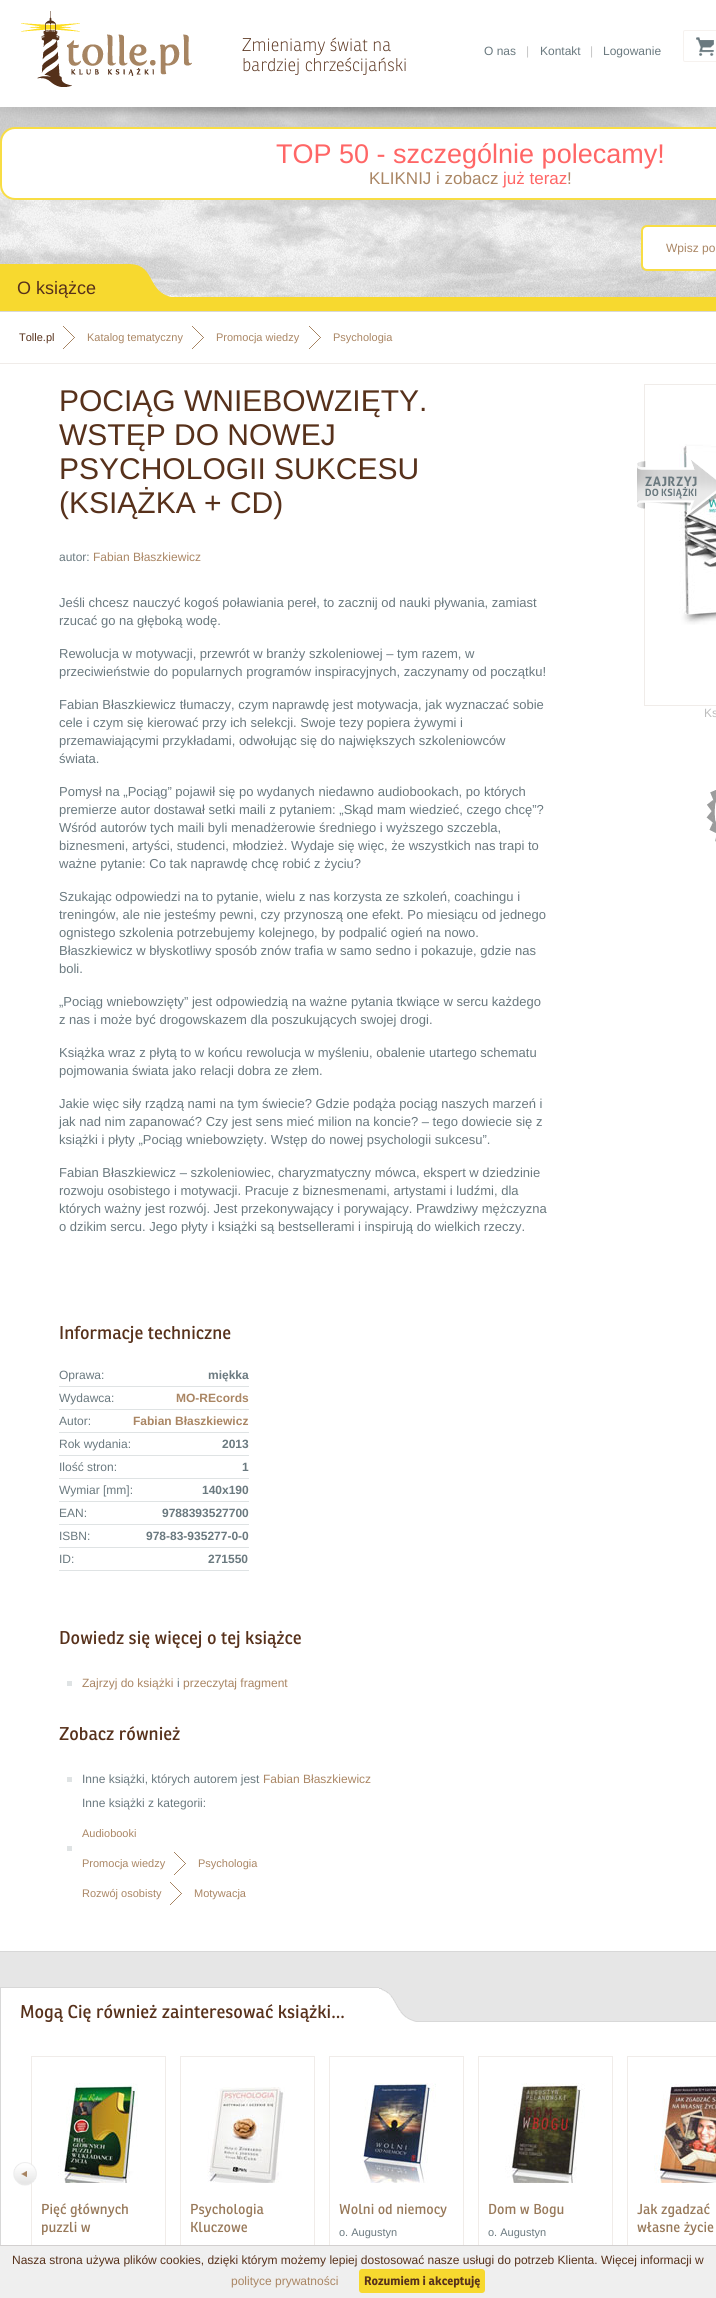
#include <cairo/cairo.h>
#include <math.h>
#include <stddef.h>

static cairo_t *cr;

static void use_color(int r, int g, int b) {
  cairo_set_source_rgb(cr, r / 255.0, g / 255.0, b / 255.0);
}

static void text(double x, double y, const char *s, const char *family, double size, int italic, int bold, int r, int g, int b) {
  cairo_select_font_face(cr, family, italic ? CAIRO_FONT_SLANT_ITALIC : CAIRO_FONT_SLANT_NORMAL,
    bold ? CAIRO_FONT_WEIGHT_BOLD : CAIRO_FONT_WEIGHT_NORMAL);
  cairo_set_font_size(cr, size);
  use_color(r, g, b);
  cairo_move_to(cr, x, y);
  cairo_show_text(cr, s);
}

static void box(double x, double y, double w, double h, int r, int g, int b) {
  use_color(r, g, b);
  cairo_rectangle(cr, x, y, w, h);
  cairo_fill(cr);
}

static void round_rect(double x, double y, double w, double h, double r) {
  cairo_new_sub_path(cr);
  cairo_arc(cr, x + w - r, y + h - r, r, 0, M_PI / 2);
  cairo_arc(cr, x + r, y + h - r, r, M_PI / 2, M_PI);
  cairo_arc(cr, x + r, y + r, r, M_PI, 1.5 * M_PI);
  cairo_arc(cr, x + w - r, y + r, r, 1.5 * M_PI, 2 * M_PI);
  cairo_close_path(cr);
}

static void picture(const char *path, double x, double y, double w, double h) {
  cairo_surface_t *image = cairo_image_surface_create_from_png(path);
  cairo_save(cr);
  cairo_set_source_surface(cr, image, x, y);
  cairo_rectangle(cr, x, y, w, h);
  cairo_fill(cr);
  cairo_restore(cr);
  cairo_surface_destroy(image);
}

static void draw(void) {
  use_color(230, 230, 230);
  cairo_paint(cr);
  picture("img_01.png", 0, 107, 716, 190);
  box(0, 0, 716, 107, 255, 255, 255);
  picture("img_02.png", 21, 11, 171, 76);
  picture("img_03.png", 696, 37, 18, 19);
  round_rect(683.5, 30.5, 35, 31, 1.5);
  use_color(246, 242, 239);
  cairo_set_line_width(cr, 1);
  cairo_stroke(cr);
  use_color(255, 255, 255);
  round_rect(1, 128, 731, 71, 14);
  cairo_fill_preserve(cr);
  use_color(248, 221, 68);
  cairo_set_line_width(cr, 2);
  cairo_stroke(cr);
  use_color(255, 255, 255);
  round_rect(642, 226, 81, 44, 5);
  cairo_fill_preserve(cr);
  use_color(248, 221, 68);
  cairo_stroke(cr);
  box(0, 312, 716, 1639, 255, 255, 255);
  use_color(216, 216, 216);
  cairo_set_fill_rule(cr, CAIRO_FILL_RULE_EVEN_ODD);
  cairo_new_path(cr);
  cairo_move_to(cr, -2, 297);
  cairo_line_to(cr, 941, 297);
  cairo_line_to(cr, 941, 1937);
  cairo_curve_to(cr, 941, 1945, 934, 1952, 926, 1952);
  cairo_line_to(cr, -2, 1952);
  cairo_close_path(cr);
  cairo_move_to(cr, -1, 297);
  cairo_line_to(cr, 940, 297);
  cairo_line_to(cr, 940, 1937);
  cairo_curve_to(cr, 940, 1945, 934, 1951, 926, 1951);
  cairo_line_to(cr, -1, 1951);
  cairo_close_path(cr);
  cairo_fill(cr);
  box(0, 264, 130, 33, 247, 217, 47);
  picture("img_04.png", 130, 264, 41, 33);
  box(0, 297, 716, 14, 247, 217, 47);
  box(0, 311, 716, 1, 216, 216, 216);
  box(0, 363, 716, 1, 240, 236, 233);
  picture("img_05.png", 63, 326, 12, 23);
  picture("img_05.png", 192, 326, 12, 23);
  picture("img_05.png", 309, 326, 12, 23);
  box(59, 1386, 190, 1, 223, 227, 228);
  box(59, 1409, 190, 1, 223, 227, 228);
  box(59, 1432, 190, 1, 223, 227, 228);
  box(59, 1455, 190, 1, 223, 227, 228);
  box(59, 1478, 190, 1, 223, 227, 228);
  box(59, 1501, 190, 1, 223, 227, 228);
  box(59, 1524, 190, 1, 223, 227, 228);
  box(59, 1547, 190, 1, 223, 227, 228);
  box(59, 1570, 190, 1, 223, 227, 228);
  box(67, 1681, 5, 5, 223, 227, 228);
  box(67, 1777, 5, 5, 223, 227, 228);
  box(67, 1846, 5, 5, 223, 227, 228);
  picture("img_05.png", 174, 1852, 12, 23);
  picture("img_05.png", 170, 1882, 12, 23);
  cairo_rectangle(cr, 644.5, 384.5, 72, 321);
  use_color(240, 236, 233);
  cairo_set_line_width(cr, 1);
  cairo_stroke(cr);
  picture("img_06.png", 679, 444, 37, 181);
  picture("img_07.png", 637, 453, 79, 67);
  picture("img_08.png", 706, 790, 10, 52);
  box(1, 2022, 715, 223, 255, 255, 255);
  cairo_rectangle(cr, 0.5, 2021.5, 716, 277);
  use_color(216, 216, 216);
  cairo_stroke(cr);
  box(1, 1988, 378, 34, 255, 255, 255);
  box(0, 1987, 379, 1, 216, 216, 216);
  box(0, 1987, 1, 35, 216, 216, 216);
  picture("img_09.png", 379, 1988, 37, 34);
  cairo_rectangle(cr, 31.5, 2056.5, 134, 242);
  use_color(240, 236, 233);
  cairo_stroke(cr);
  picture("img_10.png", 13, 2162, 24, 24);
  picture("img_11.png", 58, 2083, 80, 100);
  cairo_rectangle(cr, 180.5, 2056.5, 134, 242);
  cairo_stroke(cr);
  picture("img_12.png", 207, 2087, 78, 96);
  cairo_rectangle(cr, 329.5, 2056.5, 134, 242);
  cairo_stroke(cr);
  picture("img_13.png", 360, 2083, 76, 100);
  cairo_rectangle(cr, 478.5, 2056.5, 134, 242);
  cairo_stroke(cr);
  picture("img_14.png", 505, 2083, 80, 100);
  cairo_rectangle(cr, 627.5, 2056.5, 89, 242);
  cairo_stroke(cr);
  picture("img_15.png", 654, 2083, 62, 100);
  box(0, 2246, 716, 52, 239, 239, 239);
  box(0, 2245, 716, 1, 211, 208, 208);
  use_color(247, 217, 47);
  round_rect(359, 2269, 126, 24, 3);
  cairo_fill(cr);
  text(242, 51, "Zmieniamy świat na", "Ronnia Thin", 18, 0, 0, 87, 49, 27);
  text(242, 71, "bardziej chrześcijański", "Ronnia Thin", 18, 0, 0, 87, 49, 27);
  text(484, 55, "O nas", "Liberation Sans", 12, 0, 0, 106, 121, 127);
  text(526, 55, "|", "Liberation Sans", 12, 0, 0, 197, 197, 197);
  text(540, 55, "Kontakt", "Liberation Sans", 12, 0, 0, 106, 121, 127);
  text(590, 55, "|", "Liberation Sans", 12, 0, 0, 197, 197, 197);
  text(603, 55, "Logowanie", "Liberation Sans", 12, 0, 0, 106, 121, 127);
  text(276, 163, "TOP 50 - szczególnie polecamy!", "Liberation Sans", 27, 0, 0, 255, 102, 102);
  text(369, 184, "KLIKNIJ i zobacz", "Liberation Sans", 17, 0, 0, 170, 134, 100);
  text(503, 184, "już teraz", "Liberation Sans", 17, 0, 0, 255, 102, 102);
  text(567, 184, "!", "Liberation Sans", 17, 0, 0, 170, 134, 100);
  text(666, 252, "Wpisz po", "Liberation Sans", 12, 0, 0, 170, 134, 100);
  text(17, 294, "O książce", "Liberation Sans", 18, 0, 0, 87, 49, 27);
  text(19, 341, "Tolle.pl", "Liberation Sans", 11, 0, 0, 87, 49, 27);
  text(87, 341, "Katalog tematyczny", "Liberation Sans", 11, 0, 0, 170, 134, 100);
  text(216, 341, "Promocja wiedzy", "Liberation Sans", 11, 0, 0, 170, 134, 100);
  text(333, 341, "Psychologia", "Liberation Sans", 11, 0, 0, 170, 134, 100);
  text(59, 411, "POCIĄG WNIEBOWZIĘTY.", "Liberation Sans", 30, 0, 0, 87, 49, 27);
  text(59, 445, "WSTĘP DO NOWEJ", "Liberation Sans", 30, 0, 0, 87, 49, 27);
  text(59, 479, "PSYCHOLOGII SUKCESU", "Liberation Sans", 30, 0, 0, 87, 49, 27);
  text(59, 513, "(KSIĄŻKA + CD)", "Liberation Sans", 30, 0, 0, 87, 49, 27);
  text(59, 561, "autor:", "Liberation Sans", 12, 0, 0, 106, 121, 127);
  text(93, 561, "Fabian Błaszkiewicz", "Liberation Sans", 12, 0, 0, 170, 134, 100);
  text(59, 607, "Jeśli chcesz nauczyć kogoś poławiania pereł, to zacznij od nauki pływania, zamiast", "Liberation Sans", 13, 0, 0, 106, 121, 127);
  text(59, 625, "rzucać go na głęboką wodę.", "Liberation Sans", 13, 0, 0, 106, 121, 127);
  text(59, 658, "Rewolucja w motywacji, przewrót w branży szkoleniowej – tym razem, w", "Liberation Sans", 13, 0, 0, 106, 121, 127);
  text(59, 676, "przeciwieństwie do popularnych programów inspiracyjnych, zaczynamy od początku!", "Liberation Sans", 13, 0, 0, 106, 121, 127);
  text(59, 709, "Fabian Błaszkiewicz tłumaczy, czym naprawdę jest motywacja, jak wyznaczać sobie", "Liberation Sans", 13, 0, 0, 106, 121, 127);
  text(59, 727, "cele i czym się kierować przy ich selekcji. Swoje tezy popiera żywymi i", "Liberation Sans", 13, 0, 0, 106, 121, 127);
  text(59, 745, "przemawiającymi przykładami, odwołując się do największych szkoleniowców", "Liberation Sans", 13, 0, 0, 106, 121, 127);
  text(59, 763, "świata.", "Liberation Sans", 13, 0, 0, 106, 121, 127);
  text(59, 796, "Pomysł na „Pociąg” pojawił się po wydanych niedawno audiobookach, po których", "Liberation Sans", 13, 0, 0, 106, 121, 127);
  text(59, 814, "premierze autor dostawał setki maili z pytaniem: „Skąd mam wiedzieć, czego chcę”?", "Liberation Sans", 13, 0, 0, 106, 121, 127);
  text(59, 832, "Wśród autorów tych maili byli menadżerowie średniego i wyższego szczebla,", "Liberation Sans", 13, 0, 0, 106, 121, 127);
  text(59, 850, "biznesmeni, artyści, studenci, młodzież. Wydaje się więc, że wszystkich nas trapi to", "Liberation Sans", 13, 0, 0, 106, 121, 127);
  text(59, 868, "ważne pytanie: Co tak naprawdę chcę robić z życiu?", "Liberation Sans", 13, 0, 0, 106, 121, 127);
  text(59, 901, "Szukając odpowiedzi na to pytanie, wielu z nas korzysta ze szkoleń, coachingu i", "Liberation Sans", 13, 0, 0, 106, 121, 127);
  text(59, 919, "treningów, ale nie jesteśmy pewni, czy przynoszą one efekt. Po miesiącu od jednego", "Liberation Sans", 13, 0, 0, 106, 121, 127);
  text(59, 937, "ognistego szkolenia potrzebujemy kolejnego, by podpalić ogień na nowo.", "Liberation Sans", 13, 0, 0, 106, 121, 127);
  text(59, 955, "Błaszkiewicz w błyskotliwy sposób znów trafia w samo sedno i pokazuje, gdzie nas", "Liberation Sans", 13, 0, 0, 106, 121, 127);
  text(59, 973, "boli.", "Liberation Sans", 13, 0, 0, 106, 121, 127);
  text(59, 1006, "„Pociąg wniebowzięty” jest odpowiedzią na ważne pytania tkwiące w sercu każdego", "Liberation Sans", 13, 0, 0, 106, 121, 127);
  text(59, 1024, "z nas i może być drogowskazem dla poszukujących swojej drogi.", "Liberation Sans", 13, 0, 0, 106, 121, 127);
  text(59, 1057, "Książka wraz z płytą to w końcu rewolucja w myśleniu, obalenie utartego schematu", "Liberation Sans", 13, 0, 0, 106, 121, 127);
  text(59, 1075, "pojmowania świata jako relacji dobra ze złem.", "Liberation Sans", 13, 0, 0, 106, 121, 127);
  text(59, 1108, "Jakie więc siły rządzą nami na tym świecie? Gdzie podąża pociąg naszych marzeń i", "Liberation Sans", 13, 0, 0, 106, 121, 127);
  text(59, 1126, "jak nad nim zapanować? Czy jest sens mieć milion na koncie? – tego dowiecie się z", "Liberation Sans", 13, 0, 0, 106, 121, 127);
  text(59, 1144, "książki i płyty „Pociąg wniebowzięty. Wstęp do nowej psychologii sukcesu”.", "Liberation Sans", 13, 0, 0, 106, 121, 127);
  text(59, 1177, "Fabian Błaszkiewicz – szkoleniowiec, charyzmatyczny mówca, ekspert w dziedzinie", "Liberation Sans", 13, 0, 0, 106, 121, 127);
  text(59, 1195, "rozwoju osobistego i motywacji. Pracuje z biznesmenami, artystami i ludźmi, dla", "Liberation Sans", 13, 0, 0, 106, 121, 127);
  text(59, 1213, "których ważny jest rozwój. Jest przekonywający i porywający. Prawdziwy mężczyzna", "Liberation Sans", 13, 0, 0, 106, 121, 127);
  text(59, 1231, "o dzikim sercu. Jego płyty i książki są bestsellerami i inspirują do wielkich rzeczy.", "Liberation Sans", 13, 0, 0, 106, 121, 127);
  text(59, 1339, "Informacje techniczne", "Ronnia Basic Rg", 18, 0, 0, 87, 49, 27);
  text(59, 1379, "Oprawa:", "Liberation Sans", 12, 0, 0, 106, 121, 127);
  text(208, 1379, "miękka", "Liberation Sans", 12, 0, 1, 106, 121, 127);
  text(59, 1402, "Wydawca:", "Liberation Sans", 12, 0, 0, 106, 121, 127);
  text(176, 1402, "MO-REcords", "Liberation Sans", 12, 0, 1, 170, 134, 100);
  text(59, 1425, "Autor:", "Liberation Sans", 12, 0, 0, 106, 121, 127);
  text(133, 1425, "Fabian Błaszkiewicz", "Liberation Sans", 12, 0, 1, 170, 134, 100);
  text(59, 1448, "Rok wydania:", "Liberation Sans", 12, 0, 0, 106, 121, 127);
  text(222, 1448, "2013", "Liberation Sans", 12, 0, 1, 106, 121, 127);
  text(59, 1471, "Ilość stron:", "Liberation Sans", 12, 0, 0, 106, 121, 127);
  text(242, 1471, "1", "Liberation Sans", 12, 0, 1, 106, 121, 127);
  text(59, 1494, "Wymiar [mm]:", "Liberation Sans", 12, 0, 0, 106, 121, 127);
  text(202, 1494, "140x190", "Liberation Sans", 12, 0, 1, 106, 121, 127);
  text(59, 1517, "EAN:", "Liberation Sans", 12, 0, 0, 106, 121, 127);
  text(162, 1517, "9788393527700", "Liberation Sans", 12, 0, 1, 106, 121, 127);
  text(59, 1540, "ISBN:", "Liberation Sans", 12, 0, 0, 106, 121, 127);
  text(146, 1540, "978-83-935277-0-0", "Liberation Sans", 12, 0, 1, 106, 121, 127);
  text(59, 1563, "ID:", "Liberation Sans", 12, 0, 0, 106, 121, 127);
  text(208, 1563, "271550", "Liberation Sans", 12, 0, 1, 106, 121, 127);
  text(59, 1644, "Dowiedz się więcej o tej książce", "Ronnia Basic Rg", 18, 0, 0, 87, 49, 27);
  text(82, 1687, "Zajrzyj do książki", "Liberation Sans", 12, 0, 0, 170, 134, 100);
  text(177, 1687, "i", "Liberation Sans", 12, 0, 0, 106, 121, 127);
  text(183, 1687, "przeczytaj fragment", "Liberation Sans", 12, 0, 0, 170, 134, 100);
  text(59, 1740, "Zobacz również", "Ronnia Basic Rg", 18, 0, 0, 87, 49, 27);
  text(82, 1783, "Inne książki, których autorem jest", "Liberation Sans", 12, 0, 0, 106, 121, 127);
  text(263, 1783, "Fabian Błaszkiewicz", "Liberation Sans", 12, 0, 0, 170, 134, 100);
  text(82, 1807, "Inne książki z kategorii:", "Liberation Sans", 12, 0, 0, 106, 121, 127);
  text(82, 1837, "Audiobooki", "Liberation Sans", 11, 0, 0, 170, 134, 100);
  text(82, 1867, "Promocja wiedzy", "Liberation Sans", 11, 0, 0, 170, 134, 100);
  text(198, 1867, "Psychologia", "Liberation Sans", 11, 0, 0, 170, 134, 100);
  text(82, 1897, "Rozwój osobisty", "Liberation Sans", 11, 0, 0, 170, 134, 100);
  text(194, 1897, "Motywacja", "Liberation Sans", 11, 0, 0, 170, 134, 100);
  text(704, 717, "Ks", "Liberation Sans", 12, 0, 0, 189, 189, 189);
  text(20, 2018, "Mogą Cię również zainteresować książki...", "Ronnia Basic Rg", 18, 0, 0, 87, 49, 27);
  text(41, 2214, "Pięć głównych", "Ronnia Basic Rg", 14, 0, 0, 152, 121, 90);
  text(41, 2232, "puzzli w", "Ronnia Basic Rg", 14, 0, 0, 152, 121, 90);
  text(190, 2214, "Psychologia", "Ronnia Basic Rg", 14, 0, 0, 152, 121, 90);
  text(190, 2232, "Kluczowe", "Ronnia Basic Rg", 14, 0, 0, 152, 121, 90);
  text(339, 2214, "Wolni od niemocy", "Ronnia Basic Rg", 14, 0, 0, 152, 121, 90);
  text(339, 2236, "o. Augustyn", "Liberation Sans", 11, 0, 0, 106, 121, 127);
  text(488, 2214, "Dom w Bogu", "Ronnia Basic Rg", 14, 0, 0, 152, 121, 90);
  text(488, 2236, "o. Augustyn", "Liberation Sans", 11, 0, 0, 106, 121, 127);
  text(637, 2214, "Jak zgadzać", "Ronnia Basic Rg", 14, 0, 0, 152, 121, 90);
  text(637, 2232, "własne życie", "Ronnia Basic Rg", 14, 0, 0, 152, 121, 90);
  text(12, 2264, "Nasza strona używa plików cookies, dzięki którym możemy lepiej dostosować nasze usługi do potrzeb Klienta. Więcej informacji w", "Liberation Sans", 12, 0, 0, 87, 49, 27);
  text(231, 2285, "polityce prywatności", "Liberation Sans", 12, 0, 0, 170, 134, 100);
  text(364, 2285, "Rozumiem i akceptuję", "Ronnia Basic Rg", 12, 0, 1, 87, 49, 27);
}

int main(void) {
  cairo_surface_t *surface = cairo_image_surface_create(CAIRO_FORMAT_RGB24, 716, 2298);
  cr = cairo_create(surface);
  cairo_font_options_t *options = cairo_font_options_create();
  cairo_font_options_set_hint_metrics(options, CAIRO_HINT_METRICS_OFF);
  cairo_font_options_set_hint_style(options, CAIRO_HINT_STYLE_NONE);
  cairo_set_font_options(cr, options);
  cairo_set_miter_limit(cr, 4);
  draw();
  cairo_surface_write_to_png(surface, "out.png");
  cairo_font_options_destroy(options);
  cairo_destroy(cr);
  cairo_surface_destroy(surface);
  return 0;
}
